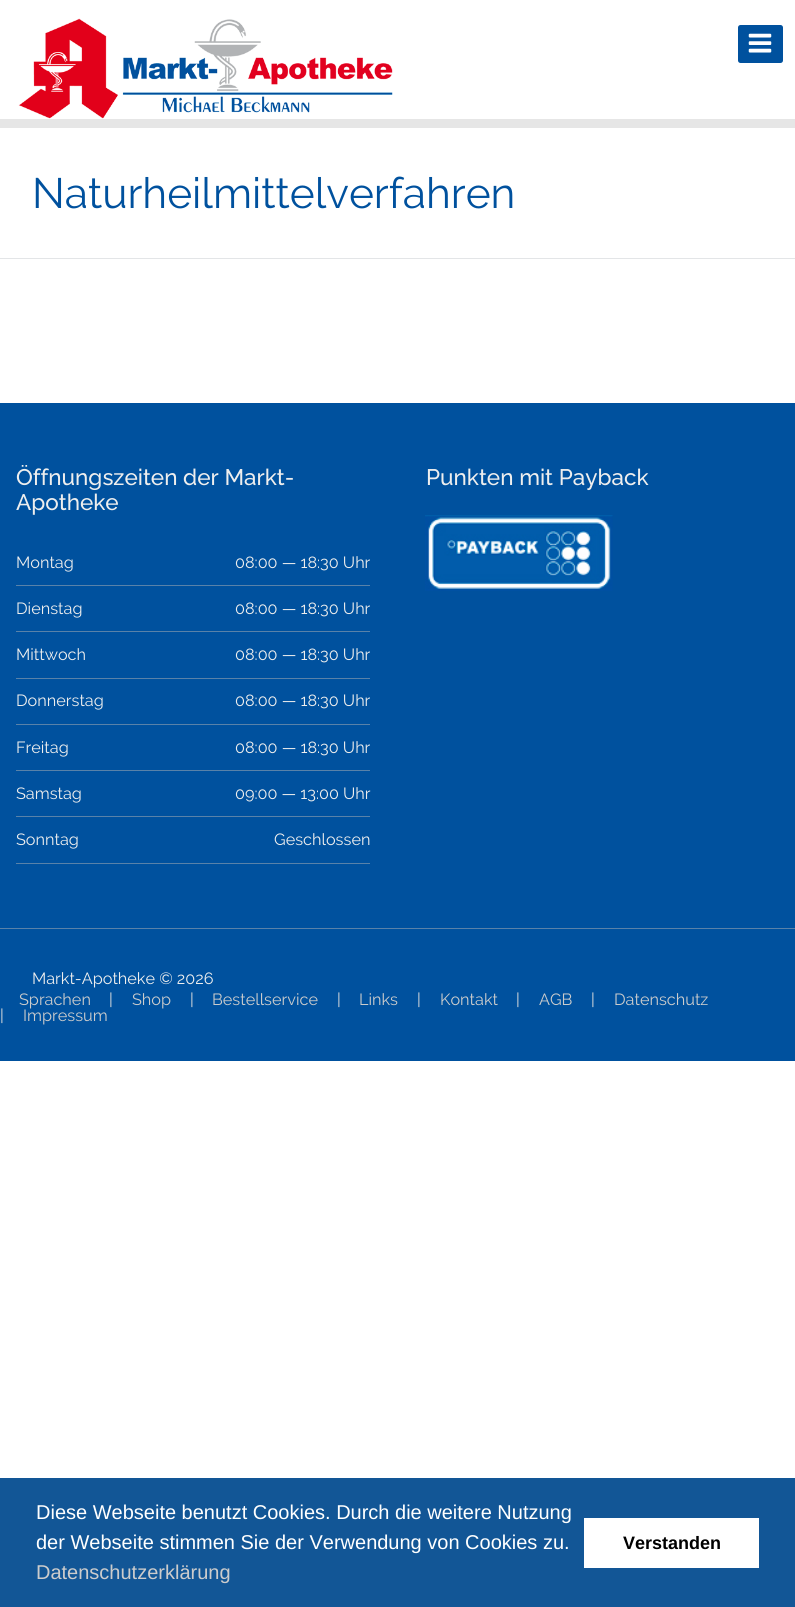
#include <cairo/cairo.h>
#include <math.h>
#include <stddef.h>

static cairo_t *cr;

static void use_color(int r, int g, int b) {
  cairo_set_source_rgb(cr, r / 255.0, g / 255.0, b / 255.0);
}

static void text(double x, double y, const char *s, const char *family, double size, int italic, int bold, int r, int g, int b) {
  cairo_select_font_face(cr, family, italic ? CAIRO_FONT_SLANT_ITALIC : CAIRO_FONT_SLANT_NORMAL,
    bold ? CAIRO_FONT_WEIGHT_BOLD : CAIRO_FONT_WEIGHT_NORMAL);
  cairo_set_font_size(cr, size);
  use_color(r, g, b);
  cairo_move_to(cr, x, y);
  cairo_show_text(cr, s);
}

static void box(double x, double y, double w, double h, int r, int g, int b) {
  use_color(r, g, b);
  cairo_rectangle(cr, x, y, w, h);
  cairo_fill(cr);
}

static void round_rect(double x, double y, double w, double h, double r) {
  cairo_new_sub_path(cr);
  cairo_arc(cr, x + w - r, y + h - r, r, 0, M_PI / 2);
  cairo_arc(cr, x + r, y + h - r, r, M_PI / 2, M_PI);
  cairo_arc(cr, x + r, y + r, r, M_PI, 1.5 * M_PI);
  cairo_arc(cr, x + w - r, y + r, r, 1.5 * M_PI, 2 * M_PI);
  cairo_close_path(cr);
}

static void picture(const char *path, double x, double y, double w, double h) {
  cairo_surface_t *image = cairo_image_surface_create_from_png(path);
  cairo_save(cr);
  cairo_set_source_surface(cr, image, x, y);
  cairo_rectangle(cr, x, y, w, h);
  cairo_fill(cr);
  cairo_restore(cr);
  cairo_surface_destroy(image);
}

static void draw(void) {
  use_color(255, 255, 255);
  cairo_paint(cr);
  box(0, 119, 795, 9, 230, 230, 230);
  picture("img_01.png", 18, 18, 375, 101);
  use_color(0, 81, 158);
  round_rect(738, 25, 45, 38, 2.5);
  cairo_fill(cr);
  picture("img_02.png", 748, 33, 24, 20);
  box(0, 258, 795, 1, 227, 229, 231);
  box(0, 403, 795, 658, 0, 81, 158);
  box(0, 928, 795, 1, 89, 130, 169);
  box(16, 585, 354, 1, 89, 130, 169);
  box(16, 631, 354, 1, 89, 130, 169);
  box(16, 678, 354, 1, 89, 130, 169);
  box(16, 724, 354, 1, 89, 130, 169);
  box(16, 770, 354, 1, 89, 130, 169);
  box(16, 816, 354, 1, 89, 130, 169);
  box(16, 863, 354, 1, 89, 130, 169);
  picture("img_03.png", 425, 515, 188, 76);
  box(0, 1478, 795, 129, 18, 86, 150);
  box(584, 1518, 175, 50, 255, 255, 255);
  text(32, 208, "Naturheilmittelverfahren", "Raleway", 42.5, 0, 0, 0, 81, 158);
  cairo_save(cr);
  cairo_rectangle(cr, 0, 465, 795, 431);
  cairo_clip(cr);
  text(16, 485, "Öffnungszeiten der Markt-", "Raleway Medium", 22.5, 0, 0, 238, 238, 238);
  cairo_restore(cr);
  text(16, 510, "Apotheke", "Raleway Medium", 22.5, 0, 0, 238, 238, 238);
  text(16, 568, "Montag", "Raleway", 16.25, 0, 0, 238, 238, 238);
  text(235, 568, "08:00 — 18:30 Uhr", "Raleway", 16.25, 0, 0, 238, 238, 238);
  text(16, 614, "Dienstag", "Raleway", 16.25, 0, 0, 238, 238, 238);
  text(235, 614, "08:00 — 18:30 Uhr", "Raleway", 16.25, 0, 0, 238, 238, 238);
  text(16, 660, "Mittwoch", "Raleway", 16.25, 0, 0, 238, 238, 238);
  text(235, 660, "08:00 — 18:30 Uhr", "Raleway", 16.25, 0, 0, 238, 238, 238);
  text(16, 706, "Donnerstag", "Raleway", 16.25, 0, 0, 238, 238, 238);
  text(235, 706, "08:00 — 18:30 Uhr", "Raleway", 16.25, 0, 0, 238, 238, 238);
  text(16, 753, "Freitag", "Raleway", 16.25, 0, 0, 238, 238, 238);
  text(235, 753, "08:00 — 18:30 Uhr", "Raleway", 16.25, 0, 0, 238, 238, 238);
  text(16, 799, "Samstag", "Raleway", 16.25, 0, 0, 238, 238, 238);
  text(235, 799, "09:00 — 13:00 Uhr", "Raleway", 16.25, 0, 0, 238, 238, 238);
  text(16, 845, "Sonntag", "Raleway", 16.25, 0, 0, 238, 238, 238);
  text(274, 845, "Geschlossen", "Raleway", 16.25, 0, 0, 238, 238, 238);
  text(426, 485, "Punkten mit Payback", "Raleway Medium", 22.5, 0, 0, 238, 238, 238);
  text(32, 984, "Markt-Apotheke © 2026", "Raleway", 16.25, 0, 0, 238, 238, 238);
  text(19, 1005, "Sprachen", "Raleway", 16.25, 0, 0, 204, 204, 204);
  text(109, 1005, "|", "Raleway", 16.25, 0, 0, 221, 221, 221);
  text(132, 1005, "Shop", "Raleway", 16.25, 0, 0, 204, 204, 204);
  text(190, 1005, "|", "Raleway", 16.25, 0, 0, 221, 221, 221);
  text(212, 1005, "Bestellservice", "Raleway", 16.25, 0, 0, 204, 204, 204);
  text(337, 1005, "|", "Raleway", 16.25, 0, 0, 221, 221, 221);
  text(359, 1005, "Links", "Raleway", 16.25, 0, 0, 204, 204, 204);
  text(417, 1005, "|", "Raleway", 16.25, 0, 0, 221, 221, 221);
  text(440, 1005, "Kontakt", "Raleway", 16.25, 0, 0, 204, 204, 204);
  text(516, 1005, "|", "Raleway", 16.25, 0, 0, 221, 221, 221);
  text(539, 1005, "AGB", "Raleway", 16.25, 0, 0, 204, 204, 204);
  text(591, 1005, "|", "Raleway", 16.25, 0, 0, 221, 221, 221);
  text(614, 1005, "Datenschutz", "Raleway", 16.25, 0, 0, 204, 204, 204);
  text(0, 1021, "|", "Raleway", 16.25, 0, 0, 221, 221, 221);
  text(23, 1021, "Impressum", "Raleway", 16.25, 0, 0, 204, 204, 204);
  text(36, 1519, "Diese Webseite benutzt Cookies. Durch die weitere Nutzung", "Liberation Sans", 20, 0, 0, 255, 255, 255);
  text(36, 1549, "der Webseite stimmen Sie der Verwendung von Cookies zu.", "Liberation Sans", 20, 0, 0, 255, 255, 255);
  text(36, 1579, "Datenschutzerklärung", "Liberation Sans", 20, 0, 0, 204, 204, 204);
  text(623, 1549, "Verstanden", "Liberation Sans", 18, 0, 1, 0, 0, 0);
}

int main(void) {
  cairo_surface_t *surface = cairo_image_surface_create(CAIRO_FORMAT_RGB24, 795, 1607);
  cr = cairo_create(surface);
  cairo_font_options_t *options = cairo_font_options_create();
  cairo_font_options_set_hint_metrics(options, CAIRO_HINT_METRICS_OFF);
  cairo_font_options_set_hint_style(options, CAIRO_HINT_STYLE_NONE);
  cairo_set_font_options(cr, options);
  cairo_set_miter_limit(cr, 4);
  draw();
  cairo_surface_write_to_png(surface, "out.png");
  cairo_font_options_destroy(options);
  cairo_destroy(cr);
  cairo_surface_destroy(surface);
  return 0;
}
